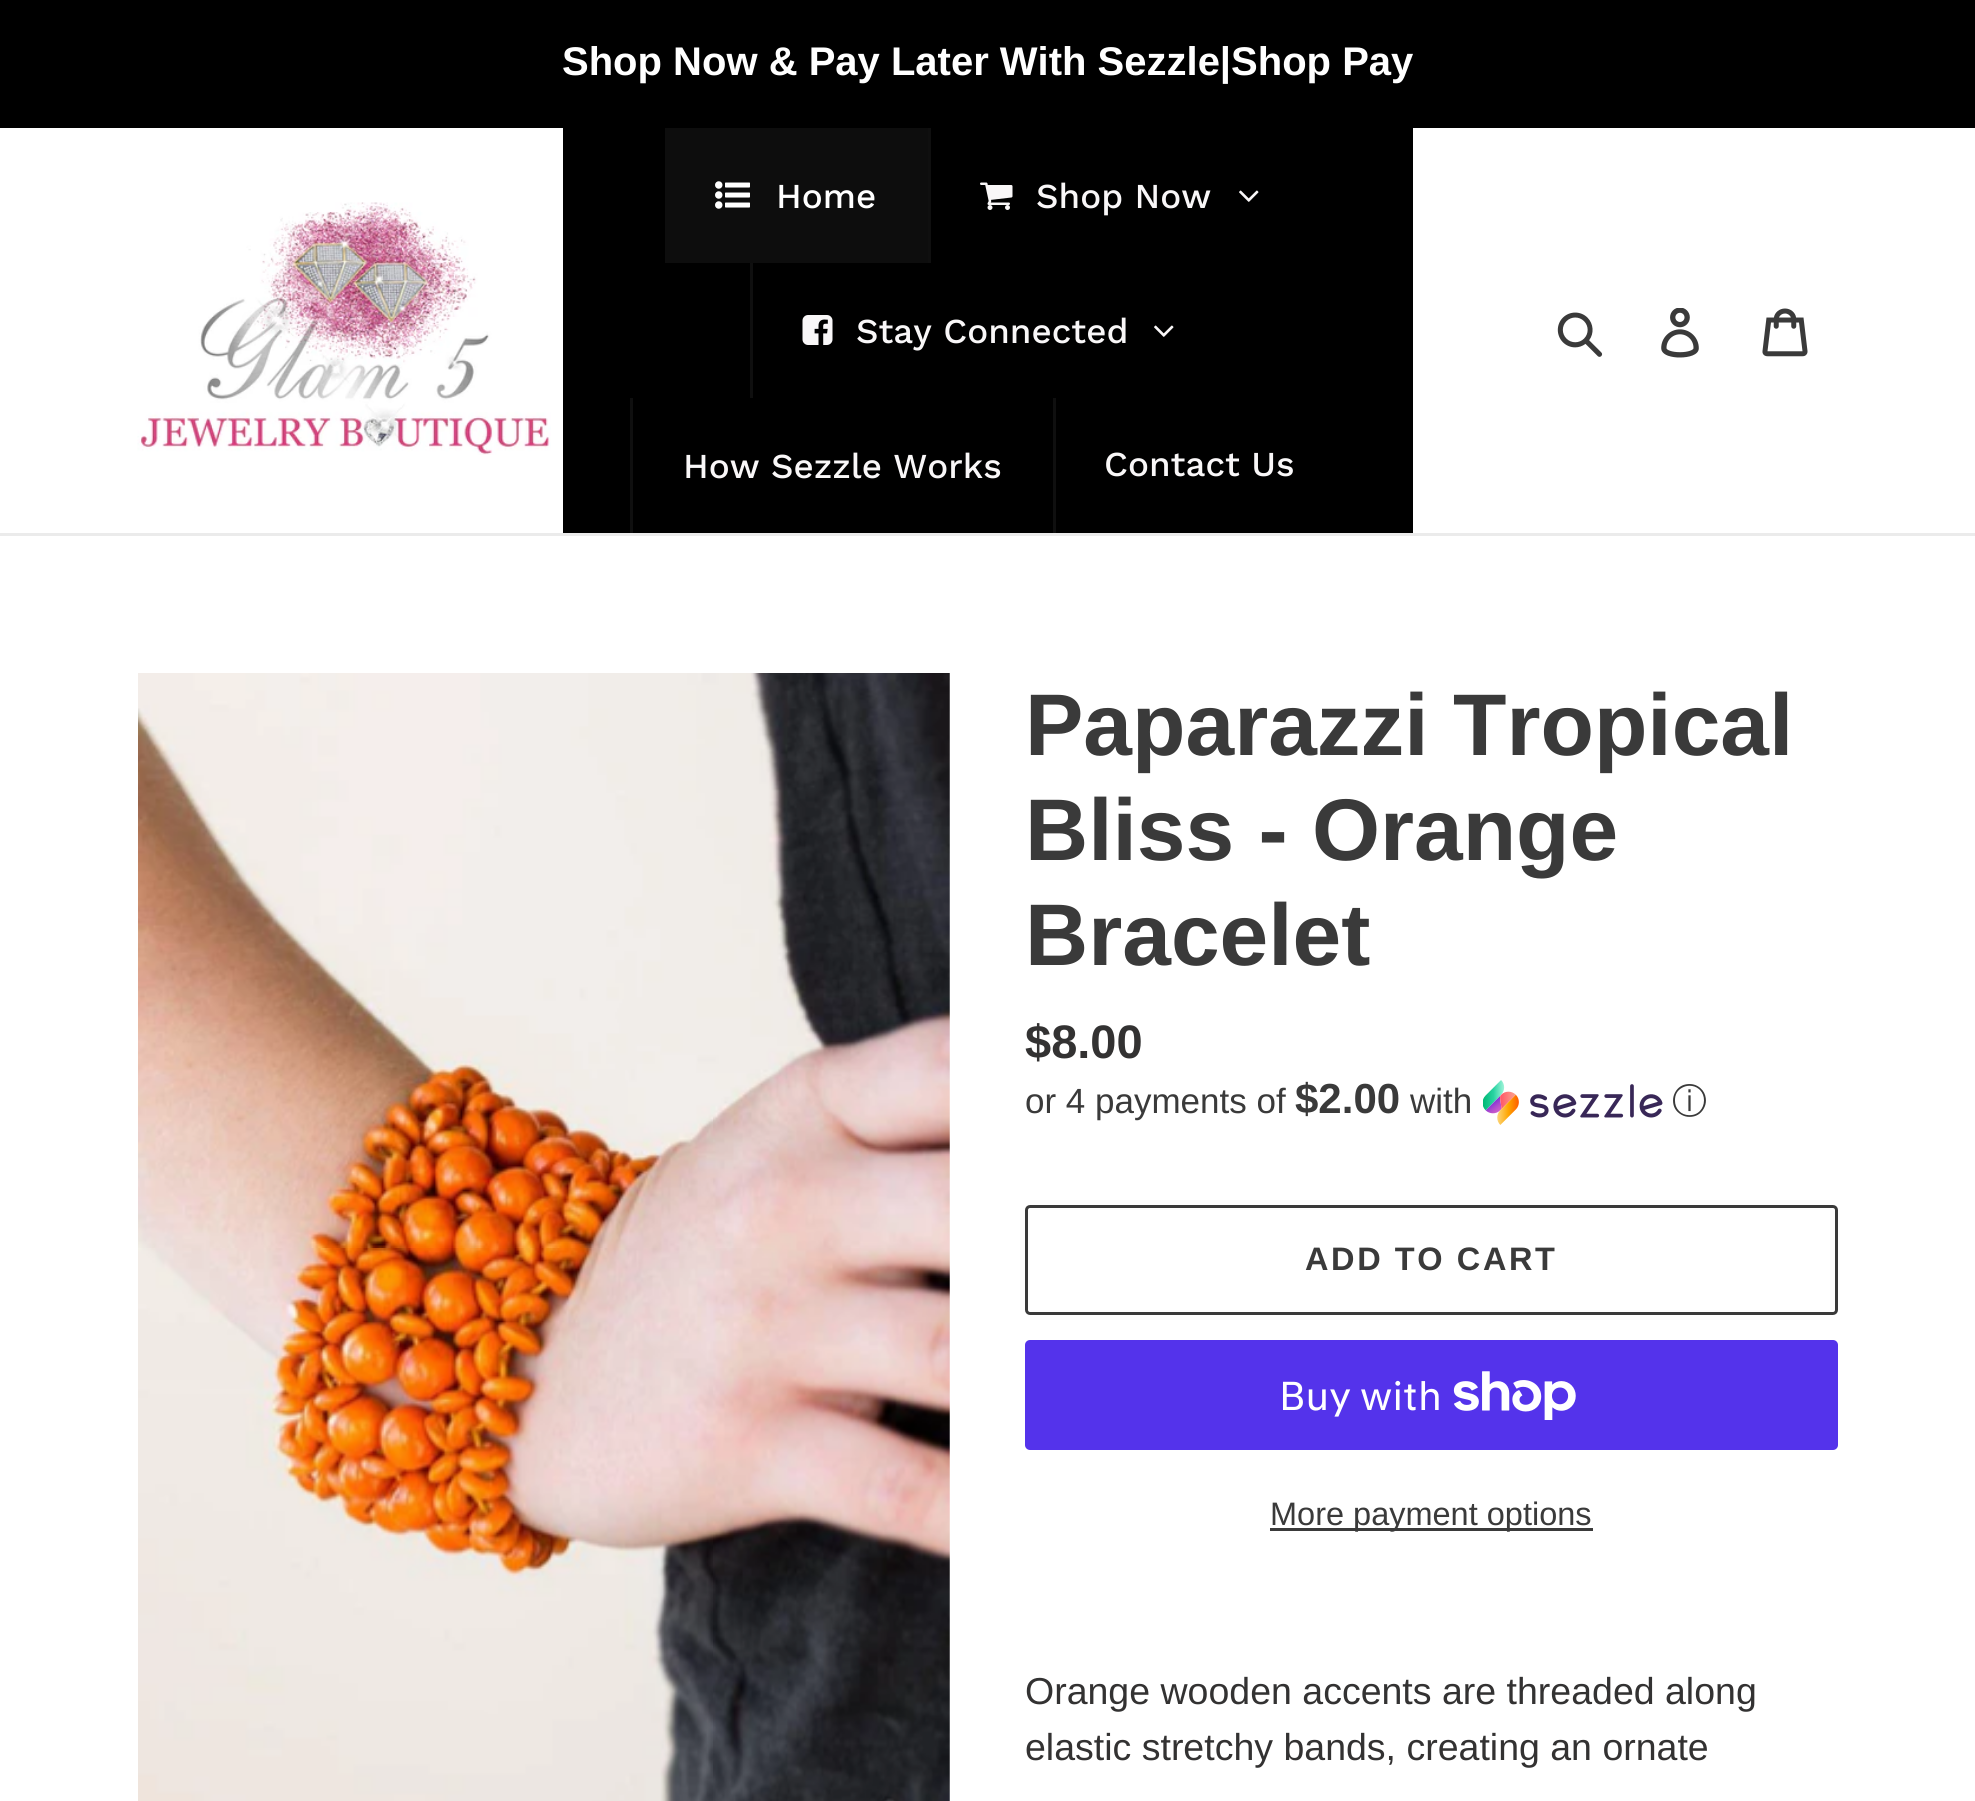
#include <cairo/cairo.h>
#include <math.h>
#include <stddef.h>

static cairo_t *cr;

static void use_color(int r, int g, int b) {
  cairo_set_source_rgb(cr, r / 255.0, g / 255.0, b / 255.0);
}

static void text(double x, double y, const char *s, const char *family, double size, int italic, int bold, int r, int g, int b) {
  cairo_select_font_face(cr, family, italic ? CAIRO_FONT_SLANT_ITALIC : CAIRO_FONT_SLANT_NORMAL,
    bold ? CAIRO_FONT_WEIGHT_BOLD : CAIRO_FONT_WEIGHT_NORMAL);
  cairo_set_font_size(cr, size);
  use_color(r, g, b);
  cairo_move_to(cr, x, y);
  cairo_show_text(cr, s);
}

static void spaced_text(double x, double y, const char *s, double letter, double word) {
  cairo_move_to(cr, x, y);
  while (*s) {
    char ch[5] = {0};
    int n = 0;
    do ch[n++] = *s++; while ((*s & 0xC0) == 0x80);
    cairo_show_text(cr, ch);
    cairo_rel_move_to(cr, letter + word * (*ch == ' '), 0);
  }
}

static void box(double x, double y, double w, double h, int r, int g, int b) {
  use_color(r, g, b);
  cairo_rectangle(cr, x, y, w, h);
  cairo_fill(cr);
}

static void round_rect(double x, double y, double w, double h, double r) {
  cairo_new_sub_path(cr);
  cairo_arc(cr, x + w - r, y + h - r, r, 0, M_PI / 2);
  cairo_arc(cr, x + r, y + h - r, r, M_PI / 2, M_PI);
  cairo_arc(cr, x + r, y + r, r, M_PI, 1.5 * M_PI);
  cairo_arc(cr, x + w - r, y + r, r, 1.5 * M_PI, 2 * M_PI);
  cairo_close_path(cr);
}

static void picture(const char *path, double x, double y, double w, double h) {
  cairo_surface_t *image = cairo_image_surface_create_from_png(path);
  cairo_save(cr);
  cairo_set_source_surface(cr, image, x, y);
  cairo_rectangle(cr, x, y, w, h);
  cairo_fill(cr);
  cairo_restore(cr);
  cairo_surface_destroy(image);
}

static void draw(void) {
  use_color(255, 255, 255);
  cairo_paint(cr);
  box(0, 0, 1975, 128, 0, 0, 0);
  box(0, 533, 1975, 3, 235, 235, 235);
  picture("img_01.png", 137, 202, 414, 253);
  box(563, 128, 850, 405, 0, 0, 0);
  box(665, 128, 263, 135, 13, 13, 13);
  picture("img_02.png", 715, 181, 35, 28);
  box(928, 128, 3, 135, 15, 15, 15);
  picture("img_03.png", 980, 182, 33, 28);
  picture("img_04.png", 1239, 190, 20, 12);
  box(750, 263, 3, 135, 15, 15, 15);
  picture("img_05.png", 802, 315, 31, 30);
  picture("img_04.png", 1154, 325, 20, 12);
  box(630, 398, 3, 135, 15, 15, 15);
  box(1053, 398, 3, 135, 15, 15, 15);
  picture("img_06.png", 1557, 312, 46, 45);
  picture("img_07.png", 1661, 308, 38, 50);
  picture("img_08.png", 1762, 308, 46, 49);
  picture("img_09.png", 138, 673, 812, 1128);
  picture("img_10.png", 1483, 1080, 180, 45);
  round_rect(1026.5, 1206.5, 810, 107, 3.5);
  use_color(58, 58, 58);
  cairo_set_line_width(cr, 3);
  cairo_stroke(cr);
  use_color(84, 51, 235);
  round_rect(1025, 1340, 813, 110, 5);
  cairo_fill(cr);
  picture("img_11.png", 1453, 1371, 123, 49);
  box(1270, 1528, 323, 3, 58, 58, 58);
  text(562, 75, "Shop Now & Pay Later With Sezzle|Shop Pay", "Liberation Sans", 40, 0, 1, 255, 255, 255);
  text(776, 208, "Home", "Work Sans Medium", 35, 0, 0, 255, 255, 255);
  text(1036, 208, "Shop Now", "Work Sans Medium", 35, 0, 0, 249, 247, 248);
  text(856, 343, "Stay Connected", "Work Sans Medium", 35, 0, 0, 249, 247, 248);
  text(683, 478, "How Sezzle Works", "Work Sans Medium", 35, 0, 0, 249, 247, 248);
  text(1104, 476, "Contact Us", "Work Sans Medium", 35, 0, 0, 249, 247, 248);
  text(1025, 755, "Paparazzi Tropical", "Liberation Sans", 87.5, 0, 1, 58, 58, 58);
  text(1025, 860, "Bliss - Orange", "Liberation Sans", 87.5, 0, 1, 58, 58, 58);
  text(1025, 965, "Bracelet", "Liberation Sans", 87.5, 0, 1, 58, 58, 58);
  text(1025, 1058, "$8.00", "Liberation Sans", 47, 0, 1, 51, 50, 50);
  text(1025, 1113, "or 4 payments of", "Liberation Sans", 35, 0, 0, 58, 58, 58);
  text(1295, 1113, "$2.00", "Liberation Sans", 42, 0, 1, 58, 58, 58);
  text(1410, 1113, "with", "Liberation Sans", 35, 0, 0, 58, 58, 58);
  text(1672, 1113, "ⓘ", "WenQuanYi Zen Hei Medium", 35, 0, 0, 58, 58, 58);
  cairo_select_font_face(cr, "Liberation Sans", CAIRO_FONT_SLANT_NORMAL, CAIRO_FONT_WEIGHT_BOLD);
  cairo_set_font_size(cr, 32.5);
  spaced_text(1305, 1270, "ADD TO CART", 2.6, 0);
  text(1279, 1410, "Buy with", "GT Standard", 40, 0, 0, 255, 255, 255);
  text(1270, 1525, "More payment options", "Liberation Sans", 32.5, 0, 0, 58, 58, 58);
  text(1025, 1704, "Orange wooden accents are threaded along", "Liberation Sans", 37.5, 0, 0, 51, 50, 50);
  text(1025, 1760, "elastic stretchy bands, creating an ornate", "Liberation Sans", 37.5, 0, 0, 51, 50, 50);
}

int main(void) {
  cairo_surface_t *surface = cairo_image_surface_create(CAIRO_FORMAT_RGB24, 1975, 1801);
  cr = cairo_create(surface);
  cairo_font_options_t *options = cairo_font_options_create();
  cairo_font_options_set_hint_metrics(options, CAIRO_HINT_METRICS_OFF);
  cairo_font_options_set_hint_style(options, CAIRO_HINT_STYLE_NONE);
  cairo_set_font_options(cr, options);
  cairo_set_miter_limit(cr, 4);
  draw();
  cairo_surface_write_to_png(surface, "out.png");
  cairo_font_options_destroy(options);
  cairo_destroy(cr);
  cairo_surface_destroy(surface);
  return 0;
}
